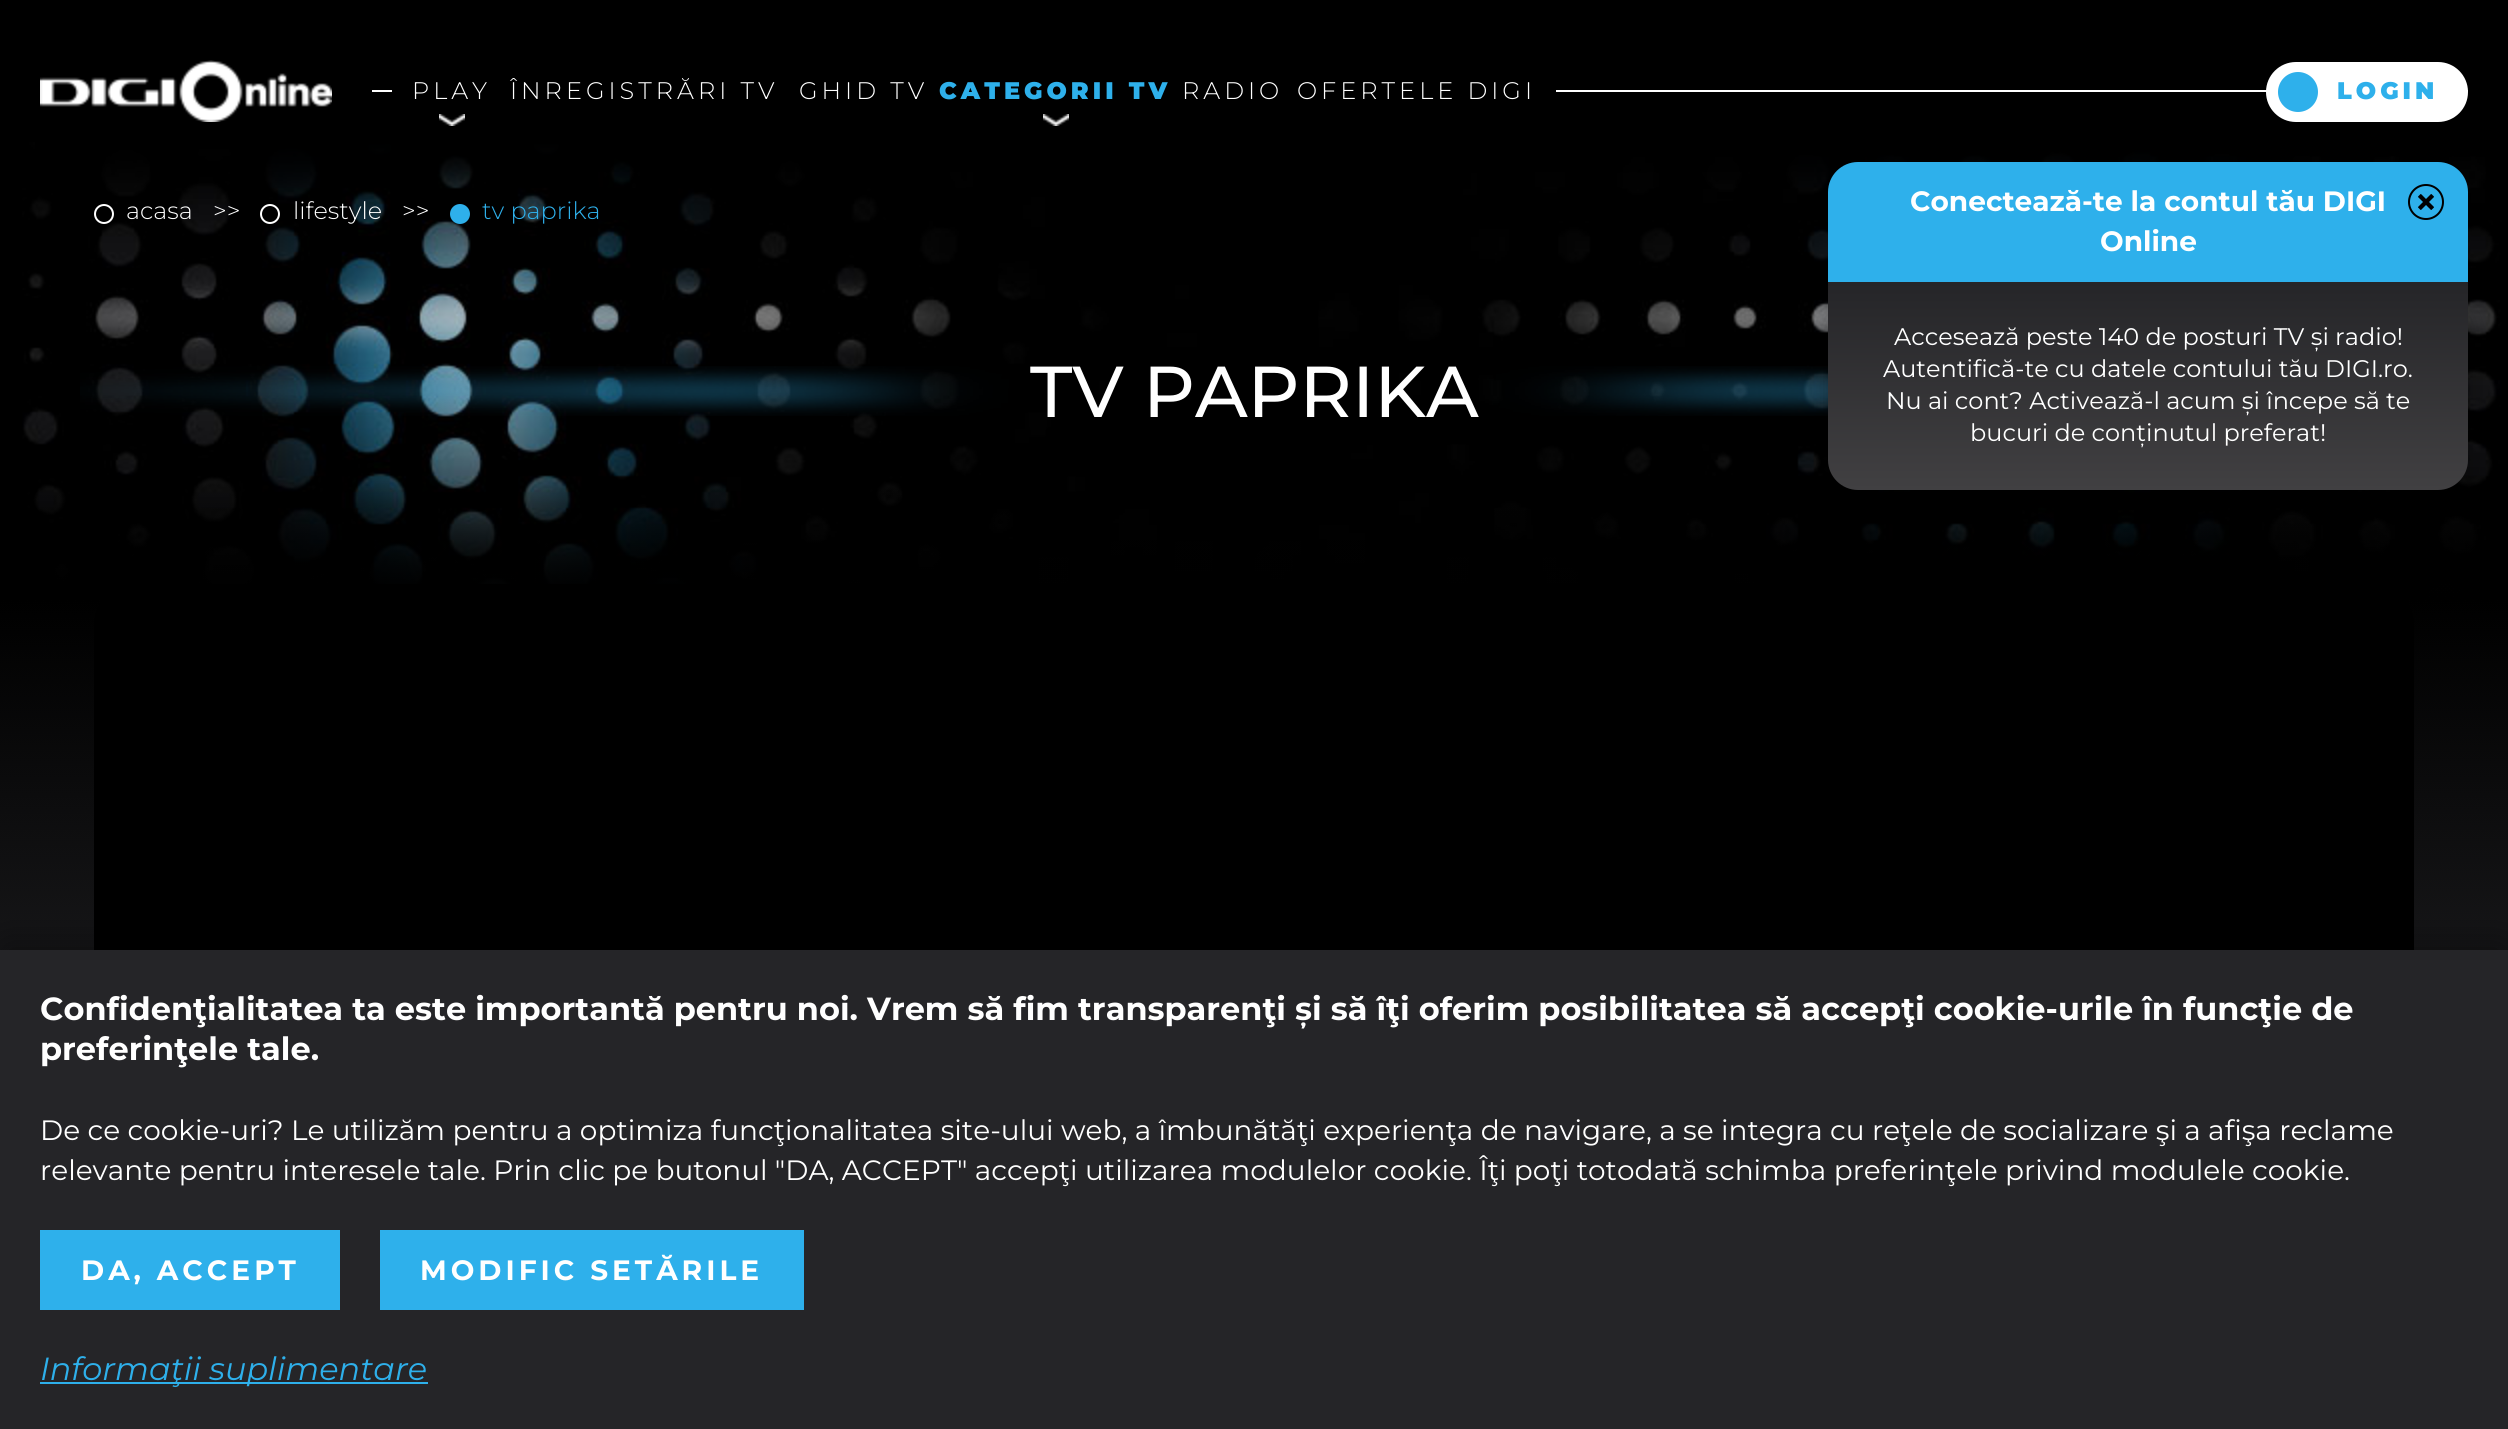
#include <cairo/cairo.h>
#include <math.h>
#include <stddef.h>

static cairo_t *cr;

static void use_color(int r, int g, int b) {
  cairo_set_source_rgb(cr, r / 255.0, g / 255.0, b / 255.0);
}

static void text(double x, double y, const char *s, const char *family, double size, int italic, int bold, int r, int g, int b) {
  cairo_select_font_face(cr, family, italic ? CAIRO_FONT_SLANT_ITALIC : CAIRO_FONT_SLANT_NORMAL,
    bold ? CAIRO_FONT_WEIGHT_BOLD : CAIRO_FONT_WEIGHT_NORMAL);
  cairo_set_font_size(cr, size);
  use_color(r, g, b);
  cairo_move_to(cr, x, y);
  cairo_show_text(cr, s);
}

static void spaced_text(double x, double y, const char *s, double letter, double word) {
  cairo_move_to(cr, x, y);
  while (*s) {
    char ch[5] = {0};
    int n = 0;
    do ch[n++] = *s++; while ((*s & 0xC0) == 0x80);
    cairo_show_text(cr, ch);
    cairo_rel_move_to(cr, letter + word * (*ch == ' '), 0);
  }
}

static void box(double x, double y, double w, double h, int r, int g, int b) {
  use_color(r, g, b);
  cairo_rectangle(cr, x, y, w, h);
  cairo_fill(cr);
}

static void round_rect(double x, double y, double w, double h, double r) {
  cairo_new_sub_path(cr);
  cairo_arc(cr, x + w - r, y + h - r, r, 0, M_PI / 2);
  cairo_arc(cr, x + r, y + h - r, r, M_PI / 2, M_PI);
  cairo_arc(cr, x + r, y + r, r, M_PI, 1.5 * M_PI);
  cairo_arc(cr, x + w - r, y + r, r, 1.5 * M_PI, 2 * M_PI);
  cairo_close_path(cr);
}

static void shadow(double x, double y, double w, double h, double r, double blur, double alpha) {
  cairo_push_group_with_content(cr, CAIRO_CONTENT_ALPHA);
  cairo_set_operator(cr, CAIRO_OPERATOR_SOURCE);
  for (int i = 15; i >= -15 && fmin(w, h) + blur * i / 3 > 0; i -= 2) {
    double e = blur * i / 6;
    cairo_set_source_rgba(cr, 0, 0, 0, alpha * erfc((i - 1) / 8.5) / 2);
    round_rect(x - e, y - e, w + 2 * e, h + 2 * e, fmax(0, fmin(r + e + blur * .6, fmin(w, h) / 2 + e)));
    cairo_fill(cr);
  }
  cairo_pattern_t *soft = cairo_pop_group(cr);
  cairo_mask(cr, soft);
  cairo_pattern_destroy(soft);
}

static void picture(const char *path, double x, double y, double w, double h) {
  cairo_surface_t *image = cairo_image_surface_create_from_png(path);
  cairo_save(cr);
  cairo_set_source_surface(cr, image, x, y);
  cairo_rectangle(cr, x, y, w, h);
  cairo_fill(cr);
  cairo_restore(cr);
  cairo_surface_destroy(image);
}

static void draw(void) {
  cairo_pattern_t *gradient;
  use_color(255, 255, 255);
  cairo_paint(cr);
  box(0, 0, 2508, 142, 0, 0, 0);
  picture("img_01.png", 40, 60, 292, 62);
  box(372, 90, 2096, 2, 255, 255, 255);
  box(392, 90, 1164, 2, 0, 0, 0);
  picture("img_02.png", 439, 114, 26, 12);
  picture("img_02.png", 1043, 114, 26, 12);
  use_color(255, 255, 255);
  round_rect(2266, 62, 202, 60, 30);
  cairo_fill(cr);
  use_color(46, 176, 235);
  cairo_arc(cr, 2298, 92, 20, 0, 2 * M_PI);
  cairo_fill(cr);
  picture("img_04.png", 0, 142, 2508, 808);
  gradient = cairo_pattern_create_linear(1254, 142, 1254, 202);
  cairo_pattern_add_color_stop_rgba(gradient, 0, 0, 0, 0, 1);
  cairo_pattern_add_color_stop_rgba(gradient, 1, 0, 0, 0, 0);
  cairo_set_source(cr, gradient);
  cairo_pattern_destroy(gradient);
  cairo_rectangle(cr, 35, 142, 2277, 57);
  cairo_fill(cr);
  use_color(46, 176, 235);
  cairo_new_path(cr);
  cairo_move_to(cr, 1858, 162);
  cairo_line_to(cr, 2438, 162);
  cairo_curve_to(cr, 2454.5, 162, 2468, 175.5, 2468, 192);
  cairo_line_to(cr, 2468, 282);
  cairo_line_to(cr, 1828, 282);
  cairo_line_to(cr, 1828, 192);
  cairo_curve_to(cr, 1828, 175.5, 1841.5, 162, 1858, 162);
  cairo_close_path(cr);
  cairo_fill(cr);
  picture("img_03.png", 2418, 194, 16, 16);
  cairo_arc(cr, 2426, 202, 17, 0, 2 * M_PI);
  use_color(0, 0, 0);
  cairo_stroke(cr);
  picture("img_05.png", 80, 366, 1748, 50);
  use_color(0, 0, 0);
  shadow(1828, 302, 640, 208, 30, 10, 0.3);
  gradient = cairo_pattern_create_linear(2148, 282, 2148, 490);
  cairo_pattern_add_color_stop_rgba(gradient, 0, 0.145, 0.145, 0.157, 1);
  cairo_pattern_add_color_stop_rgba(gradient, 1, 0.255, 0.251, 0.259, 1);
  cairo_set_source(cr, gradient);
  cairo_pattern_destroy(gradient);
  cairo_new_path(cr);
  cairo_move_to(cr, 1828, 282);
  cairo_line_to(cr, 2468, 282);
  cairo_line_to(cr, 2468, 460);
  cairo_curve_to(cr, 2468, 476.5, 2454.5, 490, 2438, 490);
  cairo_line_to(cr, 1858, 490);
  cairo_curve_to(cr, 1841.5, 490, 1828, 476.5, 1828, 460);
  cairo_close_path(cr);
  cairo_fill(cr);
  cairo_arc(cr, 104, 214, 9, 0, 2 * M_PI);
  use_color(255, 255, 255);
  cairo_stroke(cr);
  cairo_arc(cr, 270, 214, 9, 0, 2 * M_PI);
  cairo_stroke(cr);
  use_color(46, 176, 235);
  cairo_arc(cr, 460, 214, 9, 0, 2 * M_PI);
  cairo_fill_preserve(cr);
  cairo_stroke(cr);
  use_color(0, 0, 0);
  round_rect(94, 584, 2320, 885, 40);
  cairo_fill(cr);
  use_color(0, 0, 0);
  shadow(6, 950, 2496, 468, 0, 20, 0.5);
  box(0, 950, 2508, 479, 37, 37, 40);
  box(40, 1230, 300, 80, 46, 176, 235);
  box(380, 1230, 424, 80, 46, 176, 235);
  box(40, 1382, 388, 2, 46, 176, 235);
  cairo_select_font_face(cr, "Montserrat Light", CAIRO_FONT_SLANT_NORMAL, CAIRO_FONT_WEIGHT_NORMAL);
  cairo_set_font_size(cr, 24);
  use_color(255, 255, 255);
  spaced_text(412, 99, "PLAY", 4, 0);
  spaced_text(510, 99, "ÎNREGISTRĂRI TV", 4, 0);
  spaced_text(799, 99, "GHID TV", 4, 0);
  cairo_select_font_face(cr, "Montserrat Black", CAIRO_FONT_SLANT_NORMAL, CAIRO_FONT_WEIGHT_NORMAL);
  use_color(46, 176, 235);
  spaced_text(939, 99, "CATEGORII TV", 4, 0);
  cairo_select_font_face(cr, "Montserrat Light", CAIRO_FONT_SLANT_NORMAL, CAIRO_FONT_WEIGHT_NORMAL);
  use_color(255, 255, 255);
  spaced_text(1182, 99, "RADIO", 4, 0);
  spaced_text(1297, 99, "OFERTELE DIGI", 4, 0);
  cairo_select_font_face(cr, "Montserrat Black", CAIRO_FONT_SLANT_NORMAL, CAIRO_FONT_WEIGHT_NORMAL);
  use_color(46, 176, 235);
  spaced_text(2337, 99, "LOGIN", 4, 0);
  text(1910, 211, "Conectează-te la contul tău DIGI", "Montserrat", 28, 0, 1, 255, 255, 255);
  text(2100, 251, "Online", "Montserrat", 28, 0, 1, 255, 255, 255);
  text(1894, 345, "Accesează peste 140 de posturi TV și radio!", "Montserrat", 24, 0, 0, 255, 255, 255);
  text(1883, 377, "Autentifică-te cu datele contului tău DIGI.ro.", "Montserrat", 24, 0, 0, 255, 255, 255);
  text(1886, 409, "Nu ai cont? Activează-l acum și începe să te", "Montserrat", 24, 0, 0, 255, 255, 255);
  text(1970, 441, "bucuri de conținutul preferat!", "Montserrat", 24, 0, 0, 255, 255, 255);
  text(126, 219, "acasa", "Montserrat Light", 24, 0, 0, 255, 255, 255);
  text(213, 219, ">>", "Montserrat Light", 24, 0, 0, 255, 255, 255);
  text(293, 219, "lifestyle", "Montserrat Light", 24, 0, 0, 255, 255, 255);
  text(402, 219, ">>", "Montserrat Light", 24, 0, 0, 255, 255, 255);
  text(482, 219, "tv paprika", "Montserrat Light", 24, 0, 0, 46, 176, 235);
  text(1030, 417, "TV PAPRIKA", "Montserrat Medium", 72, 0, 0, 255, 255, 255);
  text(40, 1020, "Confidenţialitatea ta este importantă pentru noi. Vrem să fim transparenţi și să îţi oferim posibilitatea să accepţi cookie-urile în funcţie de", "Montserrat", 32, 0, 1, 255, 255, 255);
  text(40, 1060, "preferinţele tale.", "Montserrat", 32, 0, 1, 255, 255, 255);
  text(40, 1140, "De ce cookie-uri? Le utilizăm pentru a optimiza funcţionalitatea site-ului web, a îmbunătăţi experienţa de navigare, a se integra cu reţele de socializare şi a afişa reclame", "Montserrat", 28, 0, 0, 255, 255, 255);
  text(40, 1180, "relevante pentru interesele tale. Prin clic pe butonul \"DA, ACCEPT\" accepţi utilizarea modulelor cookie. Îţi poţi totodată schimba preferinţele privind modulele cookie.", "Montserrat", 28, 0, 0, 255, 255, 255);
  cairo_select_font_face(cr, "Montserrat", CAIRO_FONT_SLANT_NORMAL, CAIRO_FONT_WEIGHT_BOLD);
  spaced_text(81, 1280, "DA, ACCEPT", 4, 0);
  spaced_text(420, 1280, "MODIFIC SETĂRILE", 4, 0);
  text(40, 1380, "Informaţii suplimentare", "Montserrat", 32, 1, 0, 46, 176, 235);
}

int main(void) {
  cairo_surface_t *surface = cairo_image_surface_create(CAIRO_FORMAT_RGB24, 2508, 1429);
  cr = cairo_create(surface);
  cairo_font_options_t *options = cairo_font_options_create();
  cairo_font_options_set_hint_metrics(options, CAIRO_HINT_METRICS_OFF);
  cairo_font_options_set_hint_style(options, CAIRO_HINT_STYLE_NONE);
  cairo_set_font_options(cr, options);
  cairo_set_miter_limit(cr, 4);
  draw();
  cairo_surface_write_to_png(surface, "out.png");
  cairo_font_options_destroy(options);
  cairo_destroy(cr);
  cairo_surface_destroy(surface);
  return 0;
}
